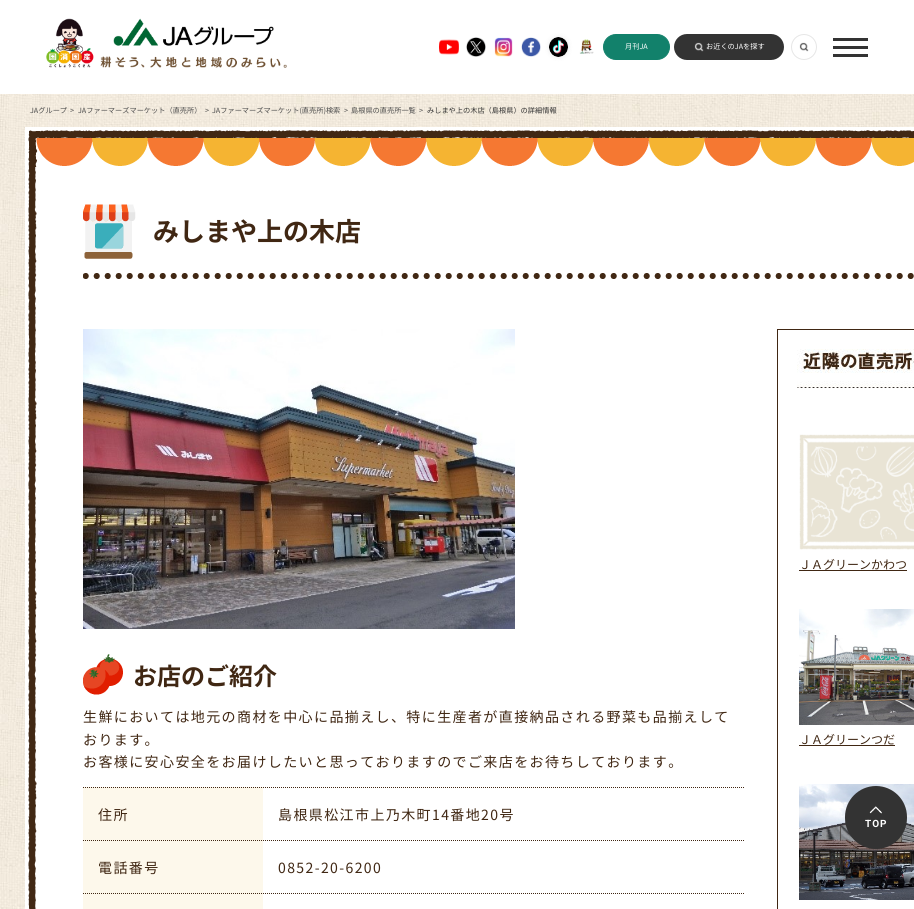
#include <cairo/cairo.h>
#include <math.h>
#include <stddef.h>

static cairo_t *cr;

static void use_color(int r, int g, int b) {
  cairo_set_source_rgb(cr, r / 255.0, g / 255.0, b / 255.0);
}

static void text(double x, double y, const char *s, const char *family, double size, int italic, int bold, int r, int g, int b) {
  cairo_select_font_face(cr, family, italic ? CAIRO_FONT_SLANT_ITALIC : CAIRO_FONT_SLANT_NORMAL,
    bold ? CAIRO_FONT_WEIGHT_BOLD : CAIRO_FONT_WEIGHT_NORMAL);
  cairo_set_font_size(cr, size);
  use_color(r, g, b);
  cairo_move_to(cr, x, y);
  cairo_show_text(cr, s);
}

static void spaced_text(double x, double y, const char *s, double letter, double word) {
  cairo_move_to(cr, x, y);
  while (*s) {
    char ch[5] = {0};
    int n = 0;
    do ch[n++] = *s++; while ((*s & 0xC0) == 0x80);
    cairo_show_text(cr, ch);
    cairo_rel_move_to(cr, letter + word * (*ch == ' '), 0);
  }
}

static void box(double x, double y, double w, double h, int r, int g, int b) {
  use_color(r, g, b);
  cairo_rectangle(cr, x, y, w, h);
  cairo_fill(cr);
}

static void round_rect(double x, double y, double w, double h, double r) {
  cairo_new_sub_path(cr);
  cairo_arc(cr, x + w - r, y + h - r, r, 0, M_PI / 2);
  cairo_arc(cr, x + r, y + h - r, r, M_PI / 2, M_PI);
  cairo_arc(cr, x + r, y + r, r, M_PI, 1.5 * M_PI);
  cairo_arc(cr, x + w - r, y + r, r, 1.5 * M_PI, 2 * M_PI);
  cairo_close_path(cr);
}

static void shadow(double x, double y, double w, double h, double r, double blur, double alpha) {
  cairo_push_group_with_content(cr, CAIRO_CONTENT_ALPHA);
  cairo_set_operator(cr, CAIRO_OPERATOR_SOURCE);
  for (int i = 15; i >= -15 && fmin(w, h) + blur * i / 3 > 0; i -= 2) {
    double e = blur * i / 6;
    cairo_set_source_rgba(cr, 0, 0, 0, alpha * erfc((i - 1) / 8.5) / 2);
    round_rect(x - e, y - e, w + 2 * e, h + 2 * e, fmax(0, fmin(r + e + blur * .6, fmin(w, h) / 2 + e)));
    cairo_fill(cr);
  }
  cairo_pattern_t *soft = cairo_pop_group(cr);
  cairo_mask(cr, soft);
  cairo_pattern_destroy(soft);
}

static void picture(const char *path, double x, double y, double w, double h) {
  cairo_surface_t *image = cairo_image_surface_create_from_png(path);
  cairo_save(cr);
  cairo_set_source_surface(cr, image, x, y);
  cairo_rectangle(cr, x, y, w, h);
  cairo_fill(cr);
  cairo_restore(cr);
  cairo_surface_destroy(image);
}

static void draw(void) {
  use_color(255, 255, 255);
  cairo_paint(cr);
  picture("img_01.png", 46, 18, 241, 50);
  picture("img_02.png", 439, 39, 20, 16);
  picture("img_03.png", 466, 37, 20, 20);
  picture("img_04.png", 494, 37, 19, 20);
  picture("img_05.png", 521, 37, 20, 20);
  use_color(51, 51, 51);
  shadow(549, 37, 19, 20, 9.5, 2.5, 0.1);
  picture("img_06.png", 549, 37, 19, 20);
  picture("img_07.png", 579, 39, 15, 15);
  use_color(18, 129, 107);
  round_rect(603.5, 34.5, 66, 25, 12.5);
  cairo_fill_preserve(cr);
  cairo_set_line_width(cr, 1);
  cairo_stroke(cr);
  use_color(51, 51, 51);
  round_rect(674, 34, 110, 26, 13);
  cairo_fill(cr);
  picture("img_08.png", 694, 42, 10, 10);
  cairo_arc(cr, 804, 47, 12.5, 0, 2 * M_PI);
  use_color(230, 230, 230);
  cairo_stroke(cr);
  picture("img_09.png", 799, 42, 10, 10);
  box(833, 38, 35, 3, 51, 51, 51);
  box(833, 46, 35, 3, 51, 51, 51);
  box(833, 54, 35, 3, 51, 51, 51);
  picture("img_10.png", 0, 94, 914, 815);
  box(25, 127, 889, 782, 255, 255, 255);
  picture("img_11.png", 28, 167, 9, 742);
  picture("img_12.png", 28, 127, 886, 40);
  picture("img_13.png", 83, 273, 831, 6);
  picture("img_14.png", 83, 204, 53, 55);
  picture("img_15.png", 83, 329, 432, 300);
  picture("img_16.png", 83, 654, 40, 41);
  box(83, 787, 180, 122, 253, 248, 235);
  cairo_new_path(cr);
  cairo_move_to(cr, 83, 787.5);
  cairo_line_to(cr, 263, 787.5);
  use_color(64, 39, 19);
  cairo_set_dash(cr, (double[]){1, 1}, 2, 0);
  cairo_stroke(cr);
  cairo_new_path(cr);
  cairo_move_to(cr, 263, 787.5);
  cairo_line_to(cr, 745, 787.5);
  cairo_stroke(cr);
  cairo_new_path(cr);
  cairo_move_to(cr, 83, 840.5);
  cairo_line_to(cr, 263, 840.5);
  cairo_stroke(cr);
  cairo_new_path(cr);
  cairo_move_to(cr, 263, 840.5);
  cairo_line_to(cr, 745, 840.5);
  cairo_stroke(cr);
  cairo_new_path(cr);
  cairo_move_to(cr, 83, 893.5);
  cairo_line_to(cr, 263, 893.5);
  cairo_stroke(cr);
  cairo_new_path(cr);
  cairo_move_to(cr, 263, 893.5);
  cairo_line_to(cr, 745, 893.5);
  cairo_stroke(cr);
  cairo_rectangle(cr, 777.5, 329.5, 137, 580);
  cairo_set_dash(cr, NULL, 0, 0);
  cairo_stroke(cr);
  picture("img_17.png", 797, 349, 117, 39);
  picture("img_18.png", 799, 434, 115, 116);
  box(799, 570, 108, 1, 64, 39, 19);
  picture("img_19.png", 799, 609, 115, 116);
  box(799, 745, 96, 1, 64, 39, 19);
  picture("img_20.png", 799, 784, 115, 116);
  use_color(51, 51, 51);
  round_rect(845, 786, 62, 63, 31);
  cairo_fill(cr);
  picture("img_21.png", 869, 806, 13, 8);
  text(625, 49, "月刊JA", "Noto Sans JP", 7.2, 0, 0, 255, 255, 255);
  text(706, 49, "お近くのJAを探す", "Noto Sans JP", 7.2, 0, 0, 255, 255, 255);
  text(30, 113, "JAグループ", "Noto Sans JP", 7.2, 0, 0, 77, 77, 77);
  text(70, 113, ">", "Noto Sans JP", 7.2, 0, 0, 77, 77, 77);
  text(78, 113, "JAファーマーズマーケット（直売所）", "Noto Sans JP", 7.2, 0, 0, 77, 77, 77);
  text(205, 113, ">", "Noto Sans JP", 7.2, 0, 0, 77, 77, 77);
  text(212, 113, "JAファーマーズマーケット(直売所)検索", "Noto Sans JP", 7.2, 0, 0, 77, 77, 77);
  text(344, 113, ">", "Noto Sans JP", 7.2, 0, 0, 77, 77, 77);
  text(351, 113, "島根県の直売所一覧", "Noto Sans JP", 7.2, 0, 0, 77, 77, 77);
  text(419, 113, ">", "Noto Sans JP", 7.2, 0, 0, 77, 77, 77);
  text(427, 113, "みしまや上の木店（島根県）の詳細情報", "Noto Sans JP", 7.2, 0, 0, 51, 51, 51);
  text(153, 241, "みしまや上の木店", "Noto Sans JP", 26, 0, 1, 64, 39, 19);
  text(133, 685, "お店のご紹介", "Noto Sans JP", 24, 0, 1, 64, 39, 19);
  cairo_select_font_face(cr, "Noto Sans JP", CAIRO_FONT_SLANT_NORMAL, CAIRO_FONT_WEIGHT_NORMAL);
  cairo_set_font_size(cr, 14);
  spaced_text(83, 722, "生鮮においては地元の商材を中心に品揃えし、特に生産者が直接納品される野菜も品揃えして", 1.4, 0);
  spaced_text(83, 745, "おります。", 1.4, 0);
  spaced_text(83, 767, "お客様に安心安全をお届けしたいと思っておりますのでご来店をお待ちしております。", 1.4, 0);
  spaced_text(98, 820, "住所", 1.4, 0);
  spaced_text(278, 820, "島根県松江市上乃木町14番地20号", 1.4, 0);
  spaced_text(98, 873, "電話番号", 1.4, 0);
  spaced_text(278, 873, "0852-20-6200", 1.4, 0);
  text(799, 569, "ＪＡグリーンかわつ", "Noto Sans JP", 12, 0, 0, 64, 39, 19);
  text(799, 744, "ＪＡグリーンつだ", "Noto Sans JP", 12, 0, 0, 64, 39, 19);
  cairo_select_font_face(cr, "Roboto", CAIRO_FONT_SLANT_NORMAL, CAIRO_FONT_WEIGHT_BOLD);
  cairo_set_font_size(cr, 10);
  use_color(255, 255, 255);
  spaced_text(865, 827, "TOP", 1, 0);
}

int main(void) {
  cairo_surface_t *surface = cairo_image_surface_create(CAIRO_FORMAT_RGB24, 914, 909);
  cr = cairo_create(surface);
  cairo_font_options_t *options = cairo_font_options_create();
  cairo_font_options_set_hint_metrics(options, CAIRO_HINT_METRICS_OFF);
  cairo_font_options_set_hint_style(options, CAIRO_HINT_STYLE_NONE);
  cairo_set_font_options(cr, options);
  cairo_set_miter_limit(cr, 4);
  draw();
  cairo_surface_write_to_png(surface, "out.png");
  cairo_font_options_destroy(options);
  cairo_destroy(cr);
  cairo_surface_destroy(surface);
  return 0;
}
